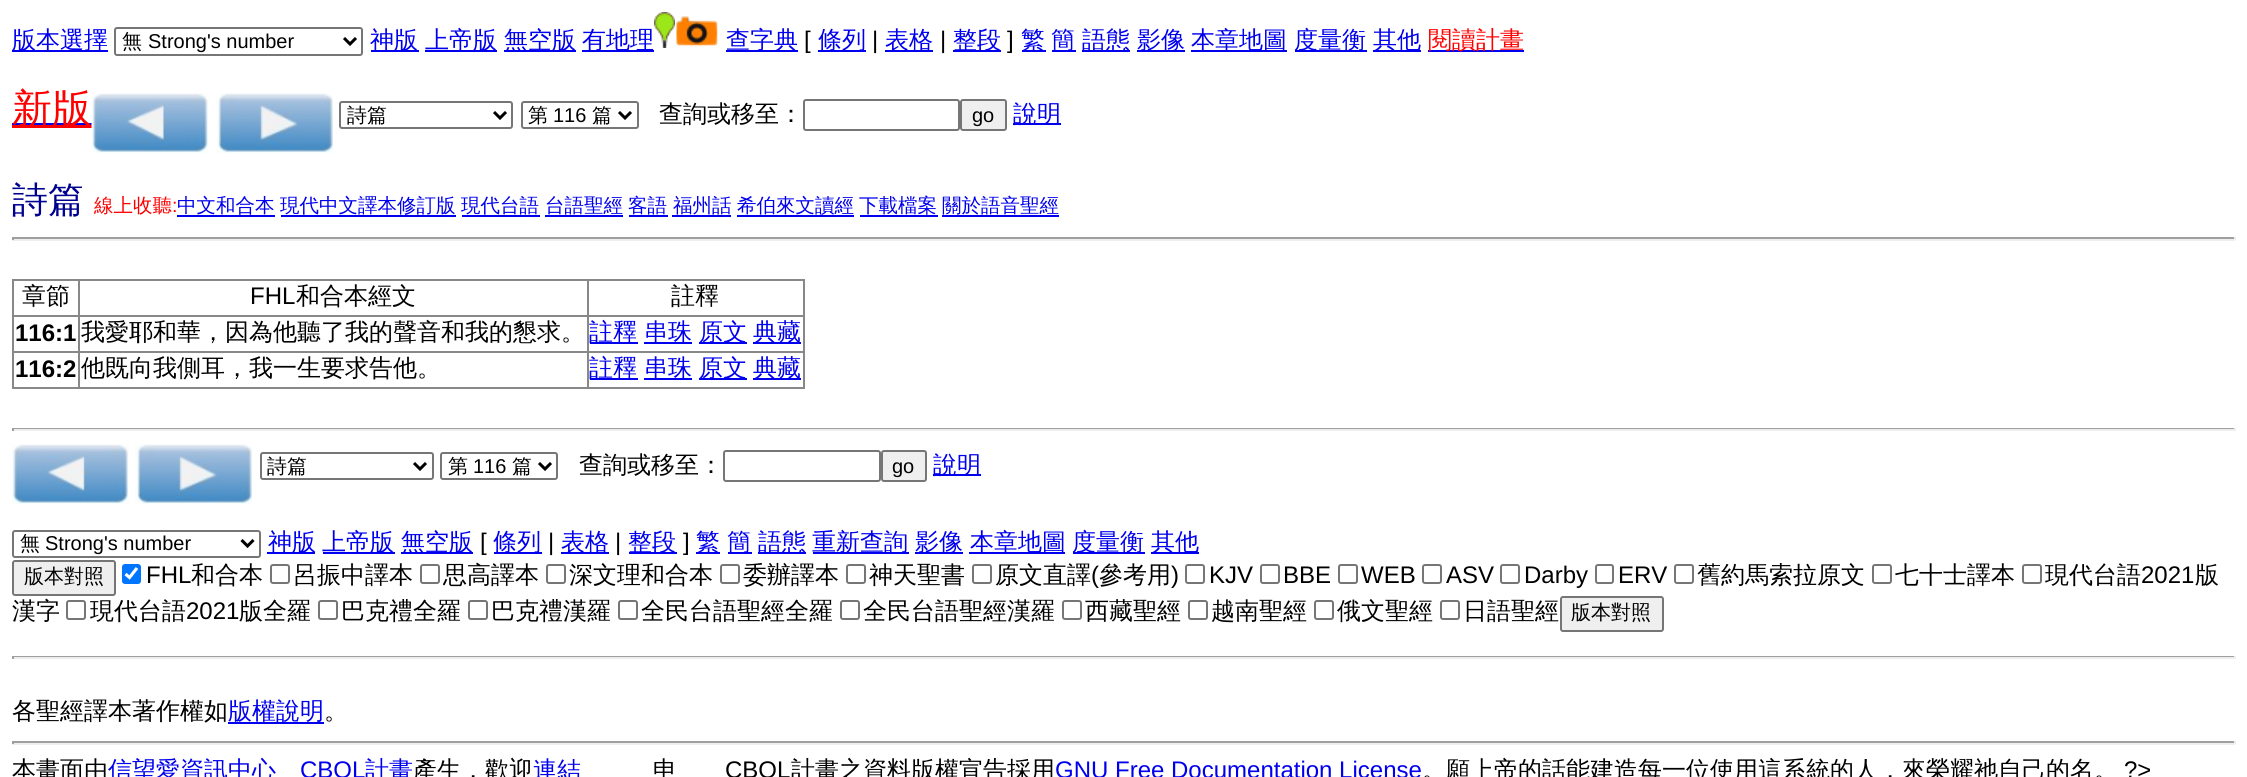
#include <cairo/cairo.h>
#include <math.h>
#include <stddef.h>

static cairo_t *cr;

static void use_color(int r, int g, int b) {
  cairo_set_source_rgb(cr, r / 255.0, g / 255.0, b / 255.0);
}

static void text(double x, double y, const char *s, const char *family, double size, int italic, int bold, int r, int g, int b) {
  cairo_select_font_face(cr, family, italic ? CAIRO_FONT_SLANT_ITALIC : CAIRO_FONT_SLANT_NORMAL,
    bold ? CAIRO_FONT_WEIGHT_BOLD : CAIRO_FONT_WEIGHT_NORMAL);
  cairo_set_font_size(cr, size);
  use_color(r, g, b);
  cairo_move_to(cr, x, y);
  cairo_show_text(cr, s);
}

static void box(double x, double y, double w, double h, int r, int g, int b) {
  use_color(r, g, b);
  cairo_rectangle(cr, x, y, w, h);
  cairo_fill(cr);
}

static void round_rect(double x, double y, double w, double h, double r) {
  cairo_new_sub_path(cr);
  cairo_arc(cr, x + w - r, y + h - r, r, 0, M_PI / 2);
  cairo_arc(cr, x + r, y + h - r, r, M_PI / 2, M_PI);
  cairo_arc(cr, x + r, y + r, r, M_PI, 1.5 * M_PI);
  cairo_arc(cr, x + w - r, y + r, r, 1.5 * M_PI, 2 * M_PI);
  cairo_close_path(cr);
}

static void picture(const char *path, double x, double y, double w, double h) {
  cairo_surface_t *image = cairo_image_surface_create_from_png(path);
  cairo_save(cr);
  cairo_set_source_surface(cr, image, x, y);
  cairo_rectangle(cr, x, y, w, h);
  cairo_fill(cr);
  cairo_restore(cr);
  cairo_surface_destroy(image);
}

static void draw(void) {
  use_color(255, 255, 255);
  cairo_paint(cr);
  box(12, 50, 96, 2, 0, 0, 238);
  round_rect(115, 28, 247, 27, 2);
  use_color(118, 118, 118);
  cairo_stroke(cr);
  cairo_new_path(cr);
  cairo_move_to(cr, 344, 38);
  cairo_line_to(cr, 350, 44);
  cairo_line_to(cr, 356, 38);
  use_color(0, 0, 0);
  cairo_set_line_width(cr, 3);
  cairo_stroke(cr);
  box(371, 50, 48, 2, 0, 0, 238);
  box(425, 50, 72, 2, 0, 0, 238);
  box(504, 50, 72, 2, 0, 0, 238);
  box(582, 50, 72, 2, 0, 0, 238);
  picture("img_01.png", 654, 12, 21, 36);
  picture("img_02.png", 676, 16, 42, 31);
  box(726, 50, 72, 2, 0, 0, 238);
  box(818, 50, 48, 2, 0, 0, 238);
  box(885, 50, 48, 2, 0, 0, 238);
  box(953, 50, 48, 2, 0, 0, 238);
  box(1022, 50, 24, 2, 0, 0, 238);
  box(1052, 50, 24, 2, 0, 0, 238);
  box(1082, 50, 48, 2, 0, 0, 238);
  box(1137, 50, 48, 2, 0, 0, 238);
  box(1191, 50, 96, 2, 0, 0, 238);
  box(1295, 50, 72, 2, 0, 0, 238);
  box(1373, 50, 48, 2, 0, 0, 238);
  box(1428, 50, 96, 2, 0, 0, 238);
  box(12, 125, 80, 3, 255, 0, 0);
  box(12, 123, 80, 2, 0, 0, 238);
  picture("img_03.png", 91, 93, 118, 60);
  picture("img_04.png", 216, 93, 117, 60);
  round_rect(340, 102, 172, 26, 2);
  use_color(118, 118, 118);
  cairo_set_line_width(cr, 2);
  cairo_stroke(cr);
  cairo_new_path(cr);
  cairo_move_to(cr, 494, 112);
  cairo_line_to(cr, 500, 118);
  cairo_line_to(cr, 506, 112);
  use_color(0, 0, 0);
  cairo_set_line_width(cr, 3);
  cairo_stroke(cr);
  round_rect(522, 102, 116, 26, 2);
  use_color(118, 118, 118);
  cairo_set_line_width(cr, 2);
  cairo_stroke(cr);
  cairo_new_path(cr);
  cairo_move_to(cr, 619, 112);
  cairo_line_to(cr, 625, 118);
  cairo_line_to(cr, 631, 112);
  use_color(0, 0, 0);
  cairo_set_line_width(cr, 3);
  cairo_stroke(cr);
  round_rect(804, 100, 155, 30, 2);
  use_color(118, 118, 118);
  cairo_set_line_width(cr, 2);
  cairo_stroke(cr);
  use_color(239, 239, 239);
  round_rect(961, 100, 45, 30, 2);
  cairo_fill_preserve(cr);
  use_color(118, 118, 118);
  cairo_stroke(cr);
  box(1013, 123, 48, 2, 0, 0, 238);
  box(177, 215, 98, 2, 0, 0, 238);
  box(281, 215, 175, 2, 0, 0, 238);
  box(462, 215, 78, 2, 0, 0, 238);
  box(545, 215, 78, 2, 0, 0, 238);
  box(629, 215, 39, 2, 0, 0, 238);
  box(672, 215, 59, 2, 0, 0, 238);
  box(737, 215, 117, 2, 0, 0, 238);
  box(860, 215, 78, 2, 0, 0, 238);
  box(942, 215, 117, 2, 0, 0, 238);
  box(12, 237, 2223, 2, 159, 159, 159);
  box(2234, 237, 2, 3, 238, 238, 238);
  box(12, 239, 2223, 2, 238, 238, 238);
  box(12, 237, 2, 3, 159, 159, 159);
  box(12, 279, 792, 2, 136, 136, 136);
  box(803, 279, 2, 110, 136, 136, 136);
  box(12, 387, 792, 2, 136, 136, 136);
  box(12, 279, 2, 110, 136, 136, 136);
  box(12, 315, 792, 2, 136, 136, 136);
  box(590, 342, 48, 2, 0, 0, 238);
  box(644, 342, 48, 2, 0, 0, 238);
  box(699, 342, 48, 2, 0, 0, 238);
  box(753, 342, 48, 2, 0, 0, 238);
  box(12, 351, 792, 2, 136, 136, 136);
  box(78, 279, 2, 110, 136, 136, 136);
  box(587, 279, 2, 110, 136, 136, 136);
  box(590, 378, 48, 2, 0, 0, 238);
  box(644, 378, 48, 2, 0, 0, 238);
  box(699, 378, 48, 2, 0, 0, 238);
  box(753, 378, 48, 2, 0, 0, 238);
  box(12, 428, 2223, 1, 159, 159, 159);
  box(2234, 428, 2, 3, 238, 238, 238);
  box(12, 429, 2223, 2, 238, 238, 238);
  box(12, 428, 2, 3, 159, 159, 159);
  picture("img_05.png", 12, 444, 117, 60);
  picture("img_04.png", 135, 444, 117, 60);
  round_rect(261, 453, 172, 26, 2);
  use_color(118, 118, 118);
  cairo_stroke(cr);
  cairo_new_path(cr);
  cairo_move_to(cr, 414, 463);
  cairo_line_to(cr, 420, 469);
  cairo_line_to(cr, 426, 463);
  use_color(0, 0, 0);
  cairo_set_line_width(cr, 3);
  cairo_stroke(cr);
  round_rect(441, 453, 116, 26, 2);
  use_color(118, 118, 118);
  cairo_set_line_width(cr, 2);
  cairo_stroke(cr);
  cairo_new_path(cr);
  cairo_move_to(cr, 539, 463);
  cairo_line_to(cr, 545, 469);
  cairo_line_to(cr, 551, 463);
  use_color(0, 0, 0);
  cairo_set_line_width(cr, 3);
  cairo_stroke(cr);
  round_rect(724, 451, 156, 30, 2);
  use_color(118, 118, 118);
  cairo_set_line_width(cr, 2);
  cairo_stroke(cr);
  use_color(239, 239, 239);
  round_rect(882, 451, 44, 30, 2);
  cairo_fill_preserve(cr);
  use_color(118, 118, 118);
  cairo_stroke(cr);
  box(933, 474, 48, 2, 0, 0, 238);
  round_rect(13, 531, 247, 26, 2);
  use_color(118, 118, 118);
  cairo_stroke(cr);
  cairo_new_path(cr);
  cairo_move_to(cr, 241.5, 540);
  cairo_line_to(cr, 247.5, 546);
  cairo_line_to(cr, 253.5, 540);
  use_color(0, 0, 0);
  cairo_set_line_width(cr, 3);
  cairo_stroke(cr);
  box(267, 552, 48, 2, 0, 0, 238);
  box(323, 552, 72, 2, 0, 0, 238);
  box(401, 552, 72, 2, 0, 0, 238);
  box(494, 552, 48, 2, 0, 0, 238);
  box(561, 552, 48, 2, 0, 0, 238);
  box(629, 552, 48, 2, 0, 0, 238);
  box(696, 552, 24, 2, 0, 0, 238);
  box(728, 552, 24, 2, 0, 0, 238);
  box(758, 552, 48, 2, 0, 0, 238);
  box(813, 552, 96, 2, 0, 0, 238);
  box(915, 552, 48, 2, 0, 0, 238);
  box(969, 552, 96, 2, 0, 0, 238);
  box(1073, 552, 72, 2, 0, 0, 238);
  box(1151, 552, 48, 2, 0, 0, 238);
  use_color(239, 239, 239);
  round_rect(13, 561, 102, 34, 2);
  cairo_fill_preserve(cr);
  use_color(118, 118, 118);
  cairo_set_line_width(cr, 2);
  cairo_stroke(cr);
  use_color(0, 117, 255);
  round_rect(122, 564, 19, 20, 3);
  cairo_fill(cr);
  cairo_new_path(cr);
  cairo_move_to(cr, 125.5, 574);
  cairo_line_to(cr, 129.5, 577.5);
  cairo_line_to(cr, 137, 568);
  use_color(255, 255, 255);
  cairo_set_line_width(cr, 3.1);
  cairo_stroke(cr);
  round_rect(271, 565, 18, 18, 2);
  use_color(118, 118, 118);
  cairo_set_line_width(cr, 2);
  cairo_stroke(cr);
  round_rect(421, 565, 18, 18, 2);
  cairo_stroke(cr);
  round_rect(547, 565, 18, 18, 2);
  cairo_stroke(cr);
  round_rect(721, 565, 18, 18, 2);
  cairo_stroke(cr);
  round_rect(847, 565, 18, 18, 2);
  cairo_stroke(cr);
  round_rect(973, 565, 18, 18, 2);
  cairo_stroke(cr);
  round_rect(1186, 565, 18, 18, 2);
  cairo_stroke(cr);
  round_rect(1261, 565, 18, 18, 2);
  cairo_stroke(cr);
  round_rect(1339, 565, 18, 18, 2);
  cairo_stroke(cr);
  round_rect(1423, 565, 18, 18, 2);
  cairo_stroke(cr);
  round_rect(1501, 565, 18, 18, 2);
  cairo_stroke(cr);
  round_rect(1596, 565, 17, 18, 2);
  cairo_stroke(cr);
  round_rect(1675, 565, 18, 18, 2);
  cairo_stroke(cr);
  round_rect(1873, 565, 18, 18, 2);
  cairo_stroke(cr);
  round_rect(2023, 565, 18, 18, 2);
  cairo_stroke(cr);
  round_rect(67, 601, 18, 18, 2);
  cairo_stroke(cr);
  round_rect(319, 601, 18, 18, 2);
  cairo_stroke(cr);
  round_rect(469, 601, 18, 18, 2);
  cairo_stroke(cr);
  round_rect(619, 601, 18, 18, 2);
  cairo_stroke(cr);
  round_rect(841, 601, 18, 18, 2);
  cairo_stroke(cr);
  round_rect(1063, 601, 18, 18, 2);
  cairo_stroke(cr);
  round_rect(1189, 601, 18, 18, 2);
  cairo_stroke(cr);
  round_rect(1315, 601, 18, 18, 2);
  cairo_stroke(cr);
  round_rect(1441, 601, 18, 18, 2);
  cairo_stroke(cr);
  use_color(239, 239, 239);
  round_rect(1561, 597, 102, 34, 2);
  cairo_fill_preserve(cr);
  use_color(118, 118, 118);
  cairo_stroke(cr);
  box(12, 656, 2223, 1, 159, 159, 159);
  box(2234, 656, 2, 3, 238, 238, 238);
  box(12, 657, 2223, 2, 238, 238, 238);
  box(12, 656, 2, 3, 159, 159, 159);
  box(228, 722, 96, 2, 0, 0, 238);
  box(12, 741, 2223, 2, 159, 159, 159);
  box(2234, 741, 2, 3, 238, 238, 238);
  box(12, 743, 2223, 2, 238, 238, 238);
  box(12, 741, 2, 3, 159, 159, 159);
  text(12, 48, "版本選擇", "WenQuanYi Zen Hei Medium", 24, 0, 0, 0, 0, 238);
  text(122, 48, "無", "WenQuanYi Zen Hei Medium", 20, 0, 0, 0, 0, 0);
  text(148, 48, "Strong's number", "Liberation Sans", 20, 0, 0, 0, 0, 0);
  text(370, 48, "神版", "WenQuanYi Zen Hei Medium", 24, 0, 0, 0, 0, 238);
  text(425, 48, "上帝版", "WenQuanYi Zen Hei Medium", 24, 0, 0, 0, 0, 238);
  text(504, 48, "無空版", "WenQuanYi Zen Hei Medium", 24, 0, 0, 0, 0, 238);
  text(582, 48, "有地理", "WenQuanYi Zen Hei Medium", 24, 0, 0, 0, 0, 238);
  text(726, 48, "查字典", "WenQuanYi Zen Hei Medium", 24, 0, 0, 0, 0, 238);
  text(804, 48, "[", "Liberation Sans", 24, 0, 0, 0, 0, 0);
  text(818, 48, "條列", "WenQuanYi Zen Hei Medium", 24, 0, 0, 0, 0, 238);
  text(872, 48, "|", "Liberation Sans", 24, 0, 0, 0, 0, 0);
  text(885, 48, "表格", "WenQuanYi Zen Hei Medium", 24, 0, 0, 0, 0, 238);
  text(940, 48, "|", "Liberation Sans", 24, 0, 0, 0, 0, 0);
  text(953, 48, "整段", "WenQuanYi Zen Hei Medium", 24, 0, 0, 0, 0, 238);
  text(1007, 48, "]", "Liberation Sans", 24, 0, 0, 0, 0, 0);
  text(1021, 48, "繁", "WenQuanYi Zen Hei Medium", 24, 0, 0, 0, 0, 238);
  text(1051, 48, "簡", "WenQuanYi Zen Hei Medium", 24, 0, 0, 0, 0, 238);
  text(1082, 48, "語態", "WenQuanYi Zen Hei Medium", 24, 0, 0, 0, 0, 238);
  text(1137, 48, "影像", "WenQuanYi Zen Hei Medium", 24, 0, 0, 0, 0, 238);
  text(1191, 48, "本章地圖", "WenQuanYi Zen Hei Medium", 24, 0, 0, 0, 0, 238);
  text(1294, 48, "度量衡", "WenQuanYi Zen Hei Medium", 24, 0, 0, 0, 0, 238);
  text(1373, 48, "其他", "WenQuanYi Zen Hei Medium", 24, 0, 0, 0, 0, 238);
  text(1428, 48, "閱讀計畫", "WenQuanYi Zen Hei Medium", 24, 0, 0, 255, 0, 0);
  text(12, 122, "新版", "WenQuanYi Zen Hei Medium", 40, 0, 0, 255, 0, 0);
  text(347, 122, "詩篇", "WenQuanYi Zen Hei Medium", 20, 0, 0, 0, 0, 0);
  text(528, 122, "第", "WenQuanYi Zen Hei Medium", 20, 0, 0, 0, 0, 0);
  text(553, 122, "116", "Liberation Sans", 20, 0, 0, 0, 0, 0);
  text(592, 122, "篇", "WenQuanYi Zen Hei Medium", 20, 0, 0, 0, 0, 0);
  text(659, 122, "查詢或移至：", "WenQuanYi Zen Hei Medium", 24, 0, 0, 0, 0, 0);
  text(972, 122, "go", "Liberation Sans", 20, 0, 0, 0, 0, 0);
  text(1013, 122, "說明", "WenQuanYi Zen Hei Medium", 24, 0, 0, 0, 0, 238);
  text(12, 212, "詩篇", "WenQuanYi Zen Hei Medium", 36, 0, 0, 0, 0, 144);
  text(94, 212, "線上收聽", "WenQuanYi Zen Hei Medium", 19.5, 0, 0, 255, 0, 0);
  text(172, 212, ":", "Liberation Sans", 19.5, 0, 0, 255, 0, 0);
  text(177, 212, "中文和合本", "WenQuanYi Zen Hei Medium", 19.5, 0, 0, 0, 0, 238);
  text(280, 212, "現代中文譯本修訂版", "WenQuanYi Zen Hei Medium", 19.5, 0, 0, 0, 0, 238);
  text(461, 212, "現代台語", "WenQuanYi Zen Hei Medium", 19.5, 0, 0, 0, 0, 238);
  text(545, 212, "台語聖經", "WenQuanYi Zen Hei Medium", 19.5, 0, 0, 0, 0, 238);
  text(628, 212, "客語", "WenQuanYi Zen Hei Medium", 19.5, 0, 0, 0, 0, 238);
  text(673, 212, "福州話", "WenQuanYi Zen Hei Medium", 19.5, 0, 0, 0, 0, 238);
  text(737, 212, "希伯來文讀經", "WenQuanYi Zen Hei Medium", 19.5, 0, 0, 0, 0, 238);
  text(859, 212, "下載檔案", "WenQuanYi Zen Hei Medium", 19.5, 0, 0, 0, 0, 238);
  text(942, 212, "關於語音聖經", "WenQuanYi Zen Hei Medium", 19.5, 0, 0, 0, 0, 238);
  text(22, 304, "章節", "WenQuanYi Zen Hei Medium", 24, 0, 0, 0, 0, 0);
  text(250, 304, "FHL", "Liberation Sans", 24, 0, 0, 0, 0, 0);
  text(296, 304, "和合本經文", "WenQuanYi Zen Hei Medium", 24, 0, 0, 0, 0, 0);
  text(671, 304, "註釋", "WenQuanYi Zen Hei Medium", 24, 0, 0, 0, 0, 0);
  text(15, 341, "116:1", "Liberation Sans", 24, 0, 1, 0, 0, 0);
  text(81, 340, "我愛耶和華，因為他聽了我的聲音和我的懇求。", "WenQuanYi Zen Hei Medium", 24, 0, 0, 0, 0, 0);
  text(589, 340, "註釋", "WenQuanYi Zen Hei Medium", 24, 0, 0, 0, 0, 238);
  text(644, 340, "串珠", "WenQuanYi Zen Hei Medium", 24, 0, 0, 0, 0, 238);
  text(699, 340, "原文", "WenQuanYi Zen Hei Medium", 24, 0, 0, 0, 0, 238);
  text(753, 340, "典藏", "WenQuanYi Zen Hei Medium", 24, 0, 0, 0, 0, 238);
  text(15, 377, "116:2", "Liberation Sans", 24, 0, 1, 0, 0, 0);
  text(81, 376, "他既向我側耳，我一生要求告他。", "WenQuanYi Zen Hei Medium", 24, 0, 0, 0, 0, 0);
  text(589, 376, "註釋", "WenQuanYi Zen Hei Medium", 24, 0, 0, 0, 0, 238);
  text(644, 376, "串珠", "WenQuanYi Zen Hei Medium", 24, 0, 0, 0, 0, 238);
  text(699, 376, "原文", "WenQuanYi Zen Hei Medium", 24, 0, 0, 0, 0, 238);
  text(753, 376, "典藏", "WenQuanYi Zen Hei Medium", 24, 0, 0, 0, 0, 238);
  text(267, 473, "詩篇", "WenQuanYi Zen Hei Medium", 20, 0, 0, 0, 0, 0);
  text(448, 473, "第", "WenQuanYi Zen Hei Medium", 20, 0, 0, 0, 0, 0);
  text(473, 473, "116", "Liberation Sans", 20, 0, 0, 0, 0, 0);
  text(512, 473, "篇", "WenQuanYi Zen Hei Medium", 20, 0, 0, 0, 0, 0);
  text(579, 473, "查詢或移至：", "WenQuanYi Zen Hei Medium", 24, 0, 0, 0, 0, 0);
  text(892, 473, "go", "Liberation Sans", 20, 0, 0, 0, 0, 0);
  text(933, 473, "說明", "WenQuanYi Zen Hei Medium", 24, 0, 0, 0, 0, 238);
  text(20, 550, "無", "WenQuanYi Zen Hei Medium", 20, 0, 0, 0, 0, 0);
  text(45, 550, "Strong's number", "Liberation Sans", 20, 0, 0, 0, 0, 0);
  text(268, 550, "神版", "WenQuanYi Zen Hei Medium", 24, 0, 0, 0, 0, 238);
  text(322, 550, "上帝版", "WenQuanYi Zen Hei Medium", 24, 0, 0, 0, 0, 238);
  text(401, 550, "無空版", "WenQuanYi Zen Hei Medium", 24, 0, 0, 0, 0, 238);
  text(480, 550, "[", "Liberation Sans", 24, 0, 0, 0, 0, 0);
  text(493, 550, "條列", "WenQuanYi Zen Hei Medium", 24, 0, 0, 0, 0, 238);
  text(548, 550, "|", "Liberation Sans", 24, 0, 0, 0, 0, 0);
  text(561, 550, "表格", "WenQuanYi Zen Hei Medium", 24, 0, 0, 0, 0, 238);
  text(615, 550, "|", "Liberation Sans", 24, 0, 0, 0, 0, 0);
  text(628, 550, "整段", "WenQuanYi Zen Hei Medium", 24, 0, 0, 0, 0, 238);
  text(683, 550, "]", "Liberation Sans", 24, 0, 0, 0, 0, 0);
  text(696, 550, "繁", "WenQuanYi Zen Hei Medium", 24, 0, 0, 0, 0, 238);
  text(727, 550, "簡", "WenQuanYi Zen Hei Medium", 24, 0, 0, 0, 0, 238);
  text(758, 550, "語態", "WenQuanYi Zen Hei Medium", 24, 0, 0, 0, 0, 238);
  text(812, 550, "重新查詢", "WenQuanYi Zen Hei Medium", 24, 0, 0, 0, 0, 238);
  text(915, 550, "影像", "WenQuanYi Zen Hei Medium", 24, 0, 0, 0, 0, 238);
  text(970, 550, "本章地圖", "WenQuanYi Zen Hei Medium", 24, 0, 0, 0, 0, 238);
  text(1072, 550, "度量衡", "WenQuanYi Zen Hei Medium", 24, 0, 0, 0, 0, 238);
  text(1151, 550, "其他", "WenQuanYi Zen Hei Medium", 24, 0, 0, 0, 0, 238);
  text(24, 583, "版本對照", "WenQuanYi Zen Hei Medium", 20, 0, 0, 0, 0, 0);
  text(146, 583, "FHL", "Liberation Sans", 24, 0, 0, 0, 0, 0);
  text(191, 583, "和合本", "WenQuanYi Zen Hei Medium", 24, 0, 0, 0, 0, 0);
  text(293, 583, "呂振中譯本", "WenQuanYi Zen Hei Medium", 24, 0, 0, 0, 0, 0);
  text(443, 583, "思高譯本", "WenQuanYi Zen Hei Medium", 24, 0, 0, 0, 0, 0);
  text(569, 583, "深文理和合本", "WenQuanYi Zen Hei Medium", 24, 0, 0, 0, 0, 0);
  text(743, 583, "委辦譯本", "WenQuanYi Zen Hei Medium", 24, 0, 0, 0, 0, 0);
  text(869, 583, "神天聖書", "WenQuanYi Zen Hei Medium", 24, 0, 0, 0, 0, 0);
  text(995, 583, "原文直譯", "WenQuanYi Zen Hei Medium", 24, 0, 0, 0, 0, 0);
  text(1091, 583, "(", "Liberation Sans", 24, 0, 0, 0, 0, 0);
  text(1099, 583, "參考用", "WenQuanYi Zen Hei Medium", 24, 0, 0, 0, 0, 0);
  text(1171, 583, ")", "Liberation Sans", 24, 0, 0, 0, 0, 0);
  text(1209, 583, "KJV", "Liberation Sans", 24, 0, 0, 0, 0, 0);
  text(1283, 583, "BBE", "Liberation Sans", 24, 0, 0, 0, 0, 0);
  text(1361, 583, "WEB", "Liberation Sans", 24, 0, 0, 0, 0, 0);
  text(1446, 583, "ASV", "Liberation Sans", 24, 0, 0, 0, 0, 0);
  text(1524, 583, "Darby", "Liberation Sans", 24, 0, 0, 0, 0, 0);
  text(1618, 583, "ERV", "Liberation Sans", 24, 0, 0, 0, 0, 0);
  text(1697, 583, "舊約馬索拉原文", "WenQuanYi Zen Hei Medium", 24, 0, 0, 0, 0, 0);
  text(1895, 583, "七十士譯本", "WenQuanYi Zen Hei Medium", 24, 0, 0, 0, 0, 0);
  text(2045, 583, "現代台語", "WenQuanYi Zen Hei Medium", 24, 0, 0, 0, 0, 0);
  text(2141, 583, "2021", "Liberation Sans", 24, 0, 0, 0, 0, 0);
  text(2195, 583, "版", "WenQuanYi Zen Hei Medium", 24, 0, 0, 0, 0, 0);
  text(12, 619, "漢字", "WenQuanYi Zen Hei Medium", 24, 0, 0, 0, 0, 0);
  text(90, 619, "現代台語", "WenQuanYi Zen Hei Medium", 24, 0, 0, 0, 0, 0);
  text(186, 619, "2021", "Liberation Sans", 24, 0, 0, 0, 0, 0);
  text(239, 619, "版全羅", "WenQuanYi Zen Hei Medium", 24, 0, 0, 0, 0, 0);
  text(341, 619, "巴克禮全羅", "WenQuanYi Zen Hei Medium", 24, 0, 0, 0, 0, 0);
  text(491, 619, "巴克禮漢羅", "WenQuanYi Zen Hei Medium", 24, 0, 0, 0, 0, 0);
  text(641, 619, "全民台語聖經全羅", "WenQuanYi Zen Hei Medium", 24, 0, 0, 0, 0, 0);
  text(863, 619, "全民台語聖經漢羅", "WenQuanYi Zen Hei Medium", 24, 0, 0, 0, 0, 0);
  text(1085, 619, "西藏聖經", "WenQuanYi Zen Hei Medium", 24, 0, 0, 0, 0, 0);
  text(1211, 619, "越南聖經", "WenQuanYi Zen Hei Medium", 24, 0, 0, 0, 0, 0);
  text(1337, 619, "俄文聖經", "WenQuanYi Zen Hei Medium", 24, 0, 0, 0, 0, 0);
  text(1463, 619, "日語聖經", "WenQuanYi Zen Hei Medium", 24, 0, 0, 0, 0, 0);
  text(1571, 619, "版本對照", "WenQuanYi Zen Hei Medium", 20, 0, 0, 0, 0, 0);
  text(12, 719, "各聖經譯本著作權如", "WenQuanYi Zen Hei Medium", 24, 0, 0, 0, 0, 0);
  text(228, 719, "版權說明", "WenQuanYi Zen Hei Medium", 24, 0, 0, 0, 0, 238);
  text(324, 719, "。", "WenQuanYi Zen Hei Medium", 24, 0, 0, 0, 0, 0);
  text(12, 778, "本畫面由", "WenQuanYi Zen Hei Medium", 24, 0, 0, 0, 0, 0);
  text(108, 778, "信望愛資訊中心", "WenQuanYi Zen Hei Medium", 24, 0, 0, 0, 0, 238);
  text(300, 778, "CBOL", "Liberation Sans", 24, 0, 0, 0, 0, 238);
  text(365, 778, "計畫", "WenQuanYi Zen Hei Medium", 24, 0, 0, 0, 0, 238);
  text(413, 778, "產生，歡迎", "WenQuanYi Zen Hei Medium", 24, 0, 0, 0, 0, 0);
  text(533, 778, "連結", "WenQuanYi Zen Hei Medium", 24, 0, 0, 0, 0, 238);
  text(653, 778, "申", "WenQuanYi Zen Hei Medium", 24, 0, 0, 0, 0, 0);
  text(725, 778, "CBOL", "Liberation Sans", 24, 0, 0, 0, 0, 0);
  text(791, 778, "計畫之資料版權宣告採用", "WenQuanYi Zen Hei Medium", 24, 0, 0, 0, 0, 0);
  text(1055, 778, "GNU Free Documentation License", "Liberation Sans", 24, 0, 0, 0, 0, 238);
  text(1422, 778, "。願上帝的話能建造每一位使用這系統的人，來榮耀祂自己的名。", "WenQuanYi Zen Hei Medium", 24, 0, 0, 0, 0, 0);
  text(2124, 778, "?>", "Liberation Sans", 24, 0, 0, 0, 0, 0);
}

int main(void) {
  cairo_surface_t *surface = cairo_image_surface_create(CAIRO_FORMAT_RGB24, 2247, 777);
  cr = cairo_create(surface);
  cairo_font_options_t *options = cairo_font_options_create();
  cairo_font_options_set_hint_metrics(options, CAIRO_HINT_METRICS_OFF);
  cairo_font_options_set_hint_style(options, CAIRO_HINT_STYLE_NONE);
  cairo_set_font_options(cr, options);
  cairo_set_miter_limit(cr, 4);
  draw();
  cairo_surface_write_to_png(surface, "out.png");
  cairo_font_options_destroy(options);
  cairo_destroy(cr);
  cairo_surface_destroy(surface);
  return 0;
}
